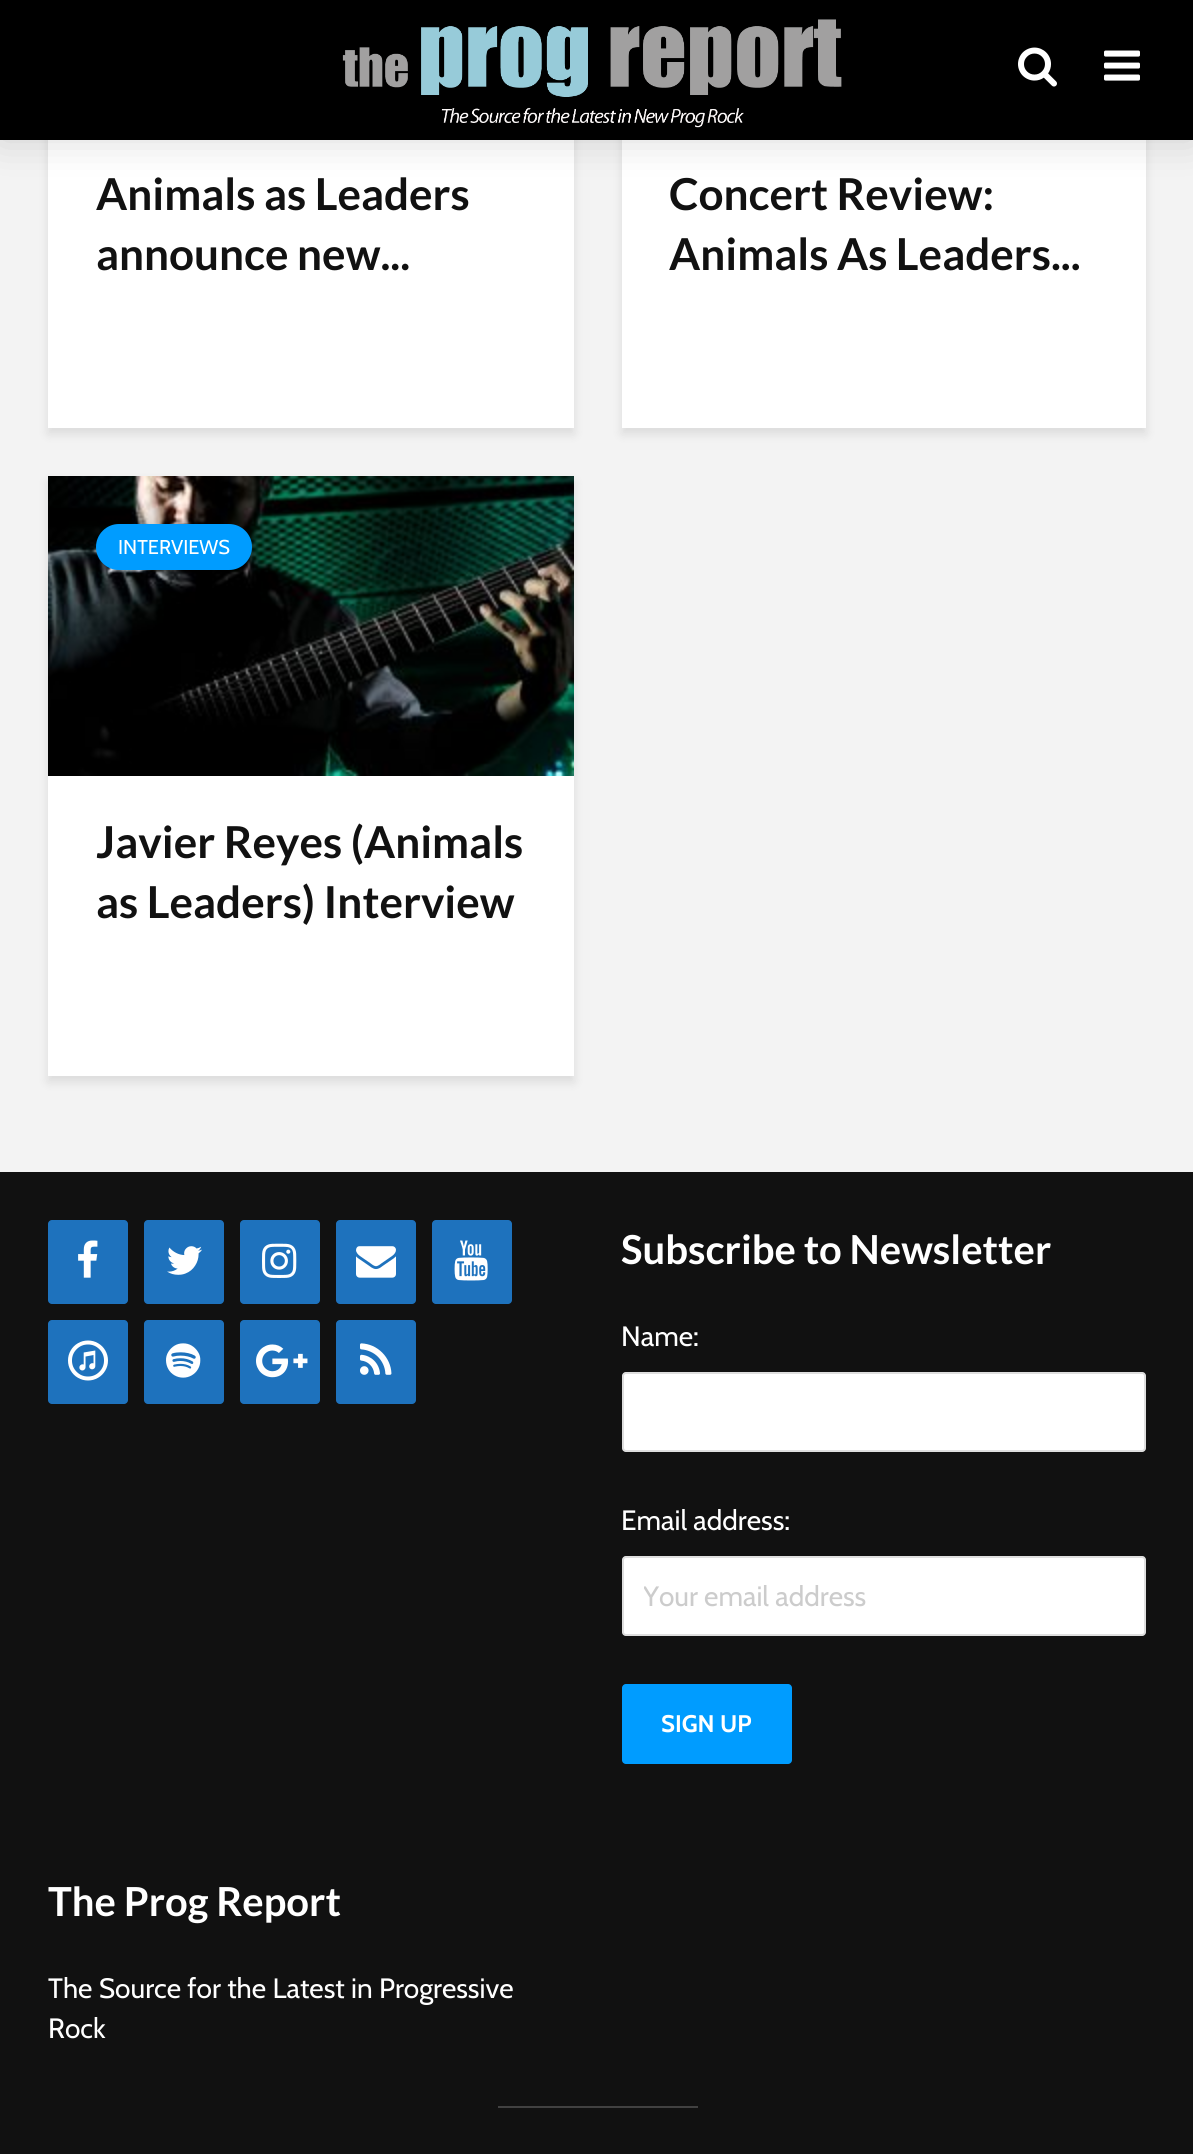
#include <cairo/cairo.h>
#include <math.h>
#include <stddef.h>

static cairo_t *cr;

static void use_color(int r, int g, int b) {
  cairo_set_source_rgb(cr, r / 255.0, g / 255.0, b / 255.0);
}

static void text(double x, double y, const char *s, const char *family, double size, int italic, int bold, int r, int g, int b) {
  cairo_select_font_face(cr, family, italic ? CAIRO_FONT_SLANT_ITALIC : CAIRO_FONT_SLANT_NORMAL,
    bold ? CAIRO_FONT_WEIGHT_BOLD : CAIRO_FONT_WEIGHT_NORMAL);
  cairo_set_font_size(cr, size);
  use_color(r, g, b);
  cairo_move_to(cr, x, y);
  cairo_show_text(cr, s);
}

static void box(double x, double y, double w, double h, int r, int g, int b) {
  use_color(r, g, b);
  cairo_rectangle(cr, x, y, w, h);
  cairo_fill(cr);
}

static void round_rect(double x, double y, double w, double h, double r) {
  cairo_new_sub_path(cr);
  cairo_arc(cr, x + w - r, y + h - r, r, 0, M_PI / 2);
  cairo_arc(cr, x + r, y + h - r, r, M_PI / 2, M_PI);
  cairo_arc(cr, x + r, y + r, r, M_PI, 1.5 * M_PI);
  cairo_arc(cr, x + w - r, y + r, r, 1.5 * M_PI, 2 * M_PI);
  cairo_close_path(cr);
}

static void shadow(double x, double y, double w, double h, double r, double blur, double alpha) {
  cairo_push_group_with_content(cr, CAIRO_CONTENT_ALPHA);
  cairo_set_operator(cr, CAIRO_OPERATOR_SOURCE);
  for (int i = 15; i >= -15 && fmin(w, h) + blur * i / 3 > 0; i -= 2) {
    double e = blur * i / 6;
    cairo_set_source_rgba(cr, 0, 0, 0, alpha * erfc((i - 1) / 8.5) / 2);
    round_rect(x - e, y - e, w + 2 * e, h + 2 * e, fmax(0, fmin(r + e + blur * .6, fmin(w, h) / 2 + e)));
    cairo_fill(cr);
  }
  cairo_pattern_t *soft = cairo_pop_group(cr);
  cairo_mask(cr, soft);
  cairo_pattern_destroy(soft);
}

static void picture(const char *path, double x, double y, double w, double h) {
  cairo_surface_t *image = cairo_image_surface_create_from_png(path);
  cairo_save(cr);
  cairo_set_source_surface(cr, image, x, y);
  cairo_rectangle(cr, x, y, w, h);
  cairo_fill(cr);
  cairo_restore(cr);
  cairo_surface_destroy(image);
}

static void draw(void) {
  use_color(243, 243, 243);
  cairo_paint(cr);
  use_color(0, 1, 1);
  shadow(48, -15, 526, 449, 0, 5, 0.1);
  box(48, 140, 526, 288, 255, 255, 255);
  use_color(0, 1, 1);
  shadow(622, -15, 524, 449, 0, 5, 0.1);
  box(622, 140, 524, 288, 255, 255, 255);
  use_color(0, 0, 0);
  shadow(0, 0, 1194, 140, 0, 20, 0.15);
  box(0, 0, 1193, 140, 0, 0, 0);
  picture("img_01.png", 342, 19, 500, 109);
  picture("img_02.png", 1018, 47, 39, 40);
  picture("img_03.png", 1104, 50, 36, 31);
  use_color(0, 1, 1);
  shadow(48, 482, 526, 600, 0, 5, 0.1);
  box(48, 776, 526, 300, 255, 255, 255);
  picture("img_04.png", 48, 476, 526, 300);
  use_color(0, 156, 255);
  round_rect(96, 524, 156, 46, 23);
  cairo_fill(cr);
  box(0, 1172, 1193, 982, 17, 17, 17);
  use_color(30, 114, 189);
  round_rect(48, 1220, 80, 84, 4);
  cairo_fill(cr);
  picture("img_05.png", 78, 1240, 20, 38);
  round_rect(144, 1220, 80, 84, 4);
  cairo_fill(cr);
  picture("img_06.png", 167, 1246, 35, 29);
  round_rect(240, 1220, 80, 84, 4);
  cairo_fill(cr);
  picture("img_07.png", 262, 1243, 35, 35);
  round_rect(336, 1220, 80, 84, 4);
  cairo_fill(cr);
  picture("img_08.png", 356, 1246, 40, 32);
  round_rect(432, 1220, 80, 84, 4);
  cairo_fill(cr);
  picture("img_09.png", 454, 1240, 34, 41);
  round_rect(48, 1320, 80, 84, 4);
  cairo_fill(cr);
  picture("img_10.png", 68, 1340, 40, 41);
  round_rect(144, 1320, 80, 84, 4);
  cairo_fill(cr);
  picture("img_11.png", 166, 1343, 35, 35);
  round_rect(240, 1320, 80, 84, 4);
  cairo_fill(cr);
  picture("img_12.png", 256, 1344, 52, 34);
  round_rect(336, 1320, 80, 84, 4);
  cairo_fill(cr);
  picture("img_13.png", 360, 1343, 32, 32);
  use_color(255, 255, 255);
  round_rect(622, 1372, 524, 80, 4);
  cairo_fill(cr);
  round_rect(623, 1373, 522, 78, 3);
  cairo_set_source_rgba(cr, 0.369, 0.369, 0.369, 0.2);
  cairo_stroke(cr);
  use_color(255, 255, 255);
  round_rect(622, 1556, 524, 80, 4);
  cairo_fill(cr);
  round_rect(623, 1557, 522, 78, 3);
  cairo_set_source_rgba(cr, 0.369, 0.369, 0.369, 0.2);
  cairo_stroke(cr);
  use_color(0, 156, 255);
  round_rect(622, 1684, 170, 80, 4);
  cairo_fill(cr);
  box(498, 2106, 200, 2, 65, 65, 65);
  text(96, 210, "Animals as Leaders", "Lato", 44, 0, 1, 17, 17, 17);
  text(96, 270, "announce new...", "Lato", 44, 0, 1, 17, 17, 17);
  text(669, 210, "Concert Review:", "Lato", 44, 0, 1, 17, 17, 17);
  text(669, 270, "Animals As Leaders...", "Lato", 44, 0, 1, 17, 17, 17);
  text(118, 554, "INTERVIEWS", "Cabin", 20, 0, 0, 255, 255, 255);
  text(96, 858, "Javier Reyes (Animals", "Lato", 44, 0, 1, 17, 17, 17);
  text(96, 918, "as Leaders) Interview", "Lato", 44, 0, 1, 17, 17, 17);
  text(621, 1264, "Subscribe to Newsletter", "Lato", 40, 0, 1, 255, 255, 255);
  text(621, 1346, "Name:", "Cabin", 28, 0, 0, 255, 255, 255);
  text(621, 1530, "Email address:", "Cabin", 28, 0, 0, 255, 255, 255);
  cairo_save(cr);
  cairo_rectangle(cr, 644, 1578, 480, 36);
  cairo_clip(cr);
  text(643, 1606, "Your email address", "Cabin", 28, 0, 0, 204, 204, 204);
  cairo_restore(cr);
  text(661, 1732, "SIGN UP", "Cabin", 24, 0, 1, 255, 255, 255);
  text(48, 1916, "The Prog Report", "Lato", 40, 0, 1, 255, 255, 255);
  text(48, 1998, "The Source for the Latest in Progressive", "Cabin", 28, 0, 0, 255, 255, 255);
  text(48, 2038, "Rock", "Cabin", 28, 0, 0, 255, 255, 255);
}

int main(void) {
  cairo_surface_t *surface = cairo_image_surface_create(CAIRO_FORMAT_RGB24, 1193, 2154);
  cr = cairo_create(surface);
  cairo_font_options_t *options = cairo_font_options_create();
  cairo_font_options_set_hint_metrics(options, CAIRO_HINT_METRICS_OFF);
  cairo_font_options_set_hint_style(options, CAIRO_HINT_STYLE_NONE);
  cairo_set_font_options(cr, options);
  cairo_set_miter_limit(cr, 4);
  draw();
  cairo_surface_write_to_png(surface, "out.png");
  cairo_font_options_destroy(options);
  cairo_destroy(cr);
  cairo_surface_destroy(surface);
  return 0;
}
